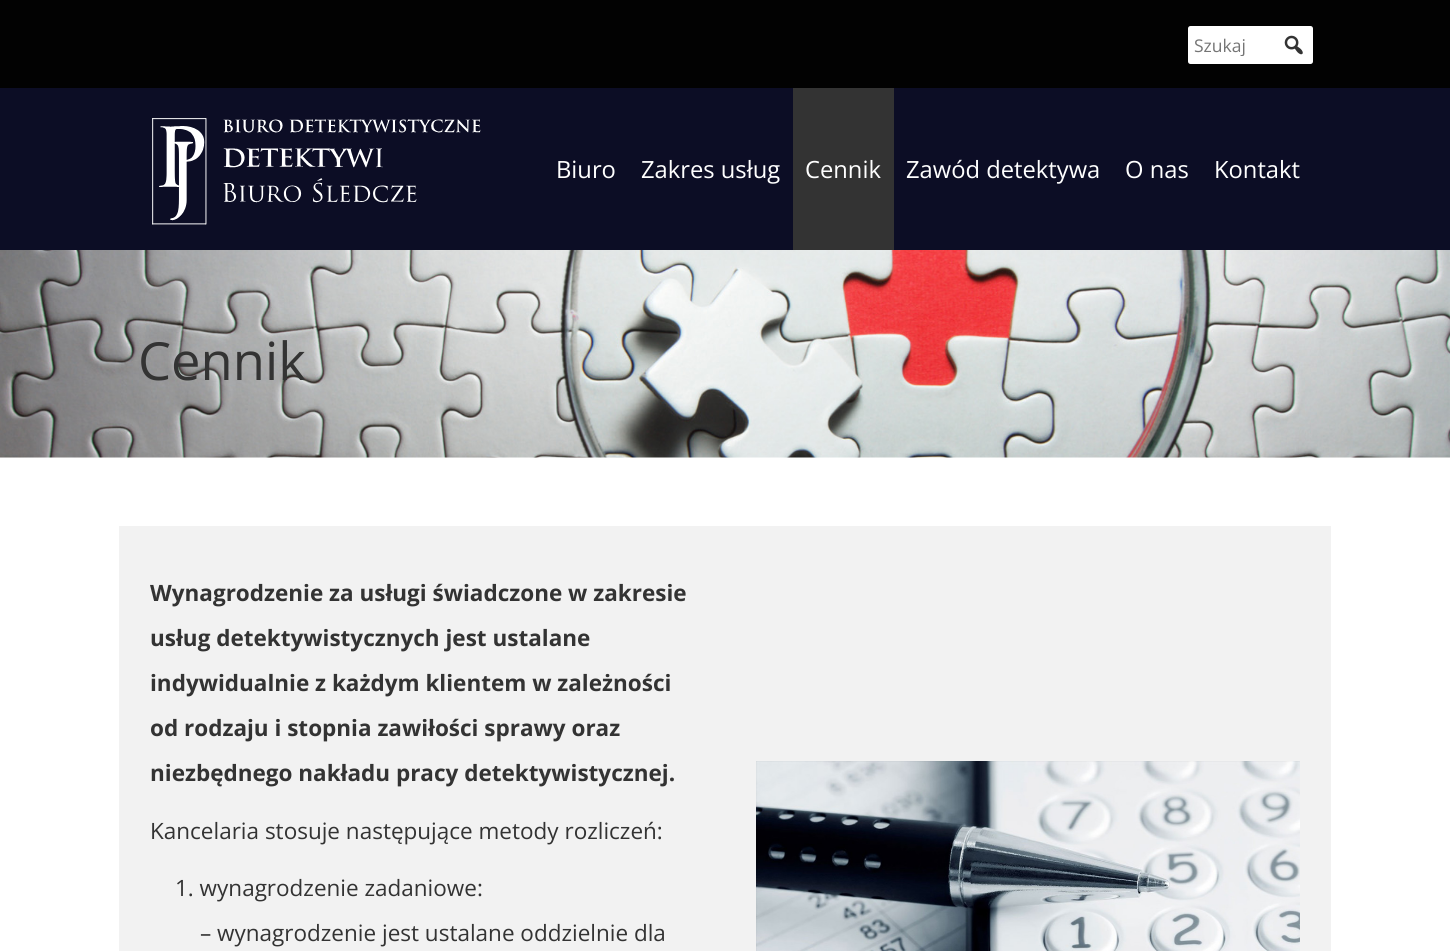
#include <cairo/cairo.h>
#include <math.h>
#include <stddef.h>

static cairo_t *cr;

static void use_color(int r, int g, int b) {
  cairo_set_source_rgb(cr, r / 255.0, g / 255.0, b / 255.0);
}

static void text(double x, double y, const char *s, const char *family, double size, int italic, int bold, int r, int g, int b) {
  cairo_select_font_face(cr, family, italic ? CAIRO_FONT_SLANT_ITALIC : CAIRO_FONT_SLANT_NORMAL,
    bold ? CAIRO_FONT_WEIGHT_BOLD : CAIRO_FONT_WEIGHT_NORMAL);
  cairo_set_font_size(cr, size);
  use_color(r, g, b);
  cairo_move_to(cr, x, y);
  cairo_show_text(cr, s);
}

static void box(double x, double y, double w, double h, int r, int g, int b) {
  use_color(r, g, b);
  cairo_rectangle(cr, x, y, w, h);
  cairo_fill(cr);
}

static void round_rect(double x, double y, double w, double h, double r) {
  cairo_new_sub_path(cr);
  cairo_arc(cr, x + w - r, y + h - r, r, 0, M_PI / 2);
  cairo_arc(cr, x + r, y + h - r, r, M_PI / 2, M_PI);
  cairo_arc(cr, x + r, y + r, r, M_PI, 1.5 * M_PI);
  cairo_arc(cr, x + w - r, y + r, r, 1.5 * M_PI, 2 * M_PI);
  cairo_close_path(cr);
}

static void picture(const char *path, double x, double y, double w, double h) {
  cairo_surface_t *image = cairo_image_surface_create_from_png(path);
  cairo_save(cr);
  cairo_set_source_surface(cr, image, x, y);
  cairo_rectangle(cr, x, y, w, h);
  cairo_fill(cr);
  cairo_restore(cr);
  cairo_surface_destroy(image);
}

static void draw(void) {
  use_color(255, 255, 255);
  cairo_paint(cr);
  box(0, 0, 1450, 88, 2, 2, 2);
  use_color(255, 255, 255);
  round_rect(1188, 26, 125, 38, 2.5);
  cairo_fill(cr);
  picture("img_01.png", 1284, 35, 19, 20);
  box(0, 88, 1450, 162, 12, 13, 37);
  picture("img_02.png", 152, 118, 329, 107);
  box(793, 88, 101, 162, 51, 51, 51);
  picture("img_03.png", 0, 250, 1450, 208);
  box(119, 526, 1212, 425, 242, 242, 242);
  picture("img_04.png", 756, 761, 544, 190);
  cairo_save(cr);
  cairo_rectangle(cr, 1194, 33, 81, 23);
  cairo_clip(cr);
  text(1194, 52, "Szukaj", "Open Sans", 17.5, 0, 0, 117, 117, 117);
  cairo_restore(cr);
  text(556, 178, "Biuro", "Open Sans", 23.75, 0, 0, 255, 255, 255);
  text(641, 178, "Zakres usług", "Open Sans", 23.75, 0, 0, 255, 255, 255);
  text(805, 178, "Cennik", "Open Sans", 23.75, 0, 0, 255, 255, 255);
  text(906, 178, "Zawód detektywa", "Open Sans", 23.75, 0, 0, 255, 255, 255);
  text(1125, 178, "O nas", "Open Sans", 23.75, 0, 0, 255, 255, 255);
  text(1214, 178, "Kontakt", "Open Sans", 23.75, 0, 0, 255, 255, 255);
  text(138, 380, "Cennik", "Open Sans", 52.5, 0, 0, 51, 51, 51);
  text(150, 601, "Wynagrodzenie za usługi świadczone w zakresie", "Open Sans", 22.5, 0, 1, 51, 51, 51);
  text(150, 646, "usług detektywistycznych jest ustalane", "Open Sans", 22.5, 0, 1, 51, 51, 51);
  text(150, 691, "indywidualnie z każdym klientem w zależności", "Open Sans", 22.5, 0, 1, 51, 51, 51);
  text(150, 736, "od rodzaju i stopnia zawiłości sprawy oraz", "Open Sans", 22.5, 0, 1, 51, 51, 51);
  text(150, 781, "niezbędnego nakładu pracy detektywistycznej.", "Open Sans", 22.5, 0, 1, 51, 51, 51);
  text(150, 839, "Kancelaria stosuje następujące metody rozliczeń:", "Open Sans", 22.5, 0, 0, 51, 51, 51);
  text(175, 896, "1. wynagrodzenie zadaniowe:", "Open Sans", 22.5, 0, 0, 51, 51, 51);
  text(200, 941, "– wynagrodzenie jest ustalane oddzielnie dla", "Open Sans", 22.5, 0, 0, 51, 51, 51);
}

int main(void) {
  cairo_surface_t *surface = cairo_image_surface_create(CAIRO_FORMAT_RGB24, 1450, 951);
  cr = cairo_create(surface);
  cairo_font_options_t *options = cairo_font_options_create();
  cairo_font_options_set_hint_metrics(options, CAIRO_HINT_METRICS_OFF);
  cairo_font_options_set_hint_style(options, CAIRO_HINT_STYLE_NONE);
  cairo_set_font_options(cr, options);
  cairo_set_miter_limit(cr, 4);
  draw();
  cairo_surface_write_to_png(surface, "out.png");
  cairo_font_options_destroy(options);
  cairo_destroy(cr);
  cairo_surface_destroy(surface);
  return 0;
}
